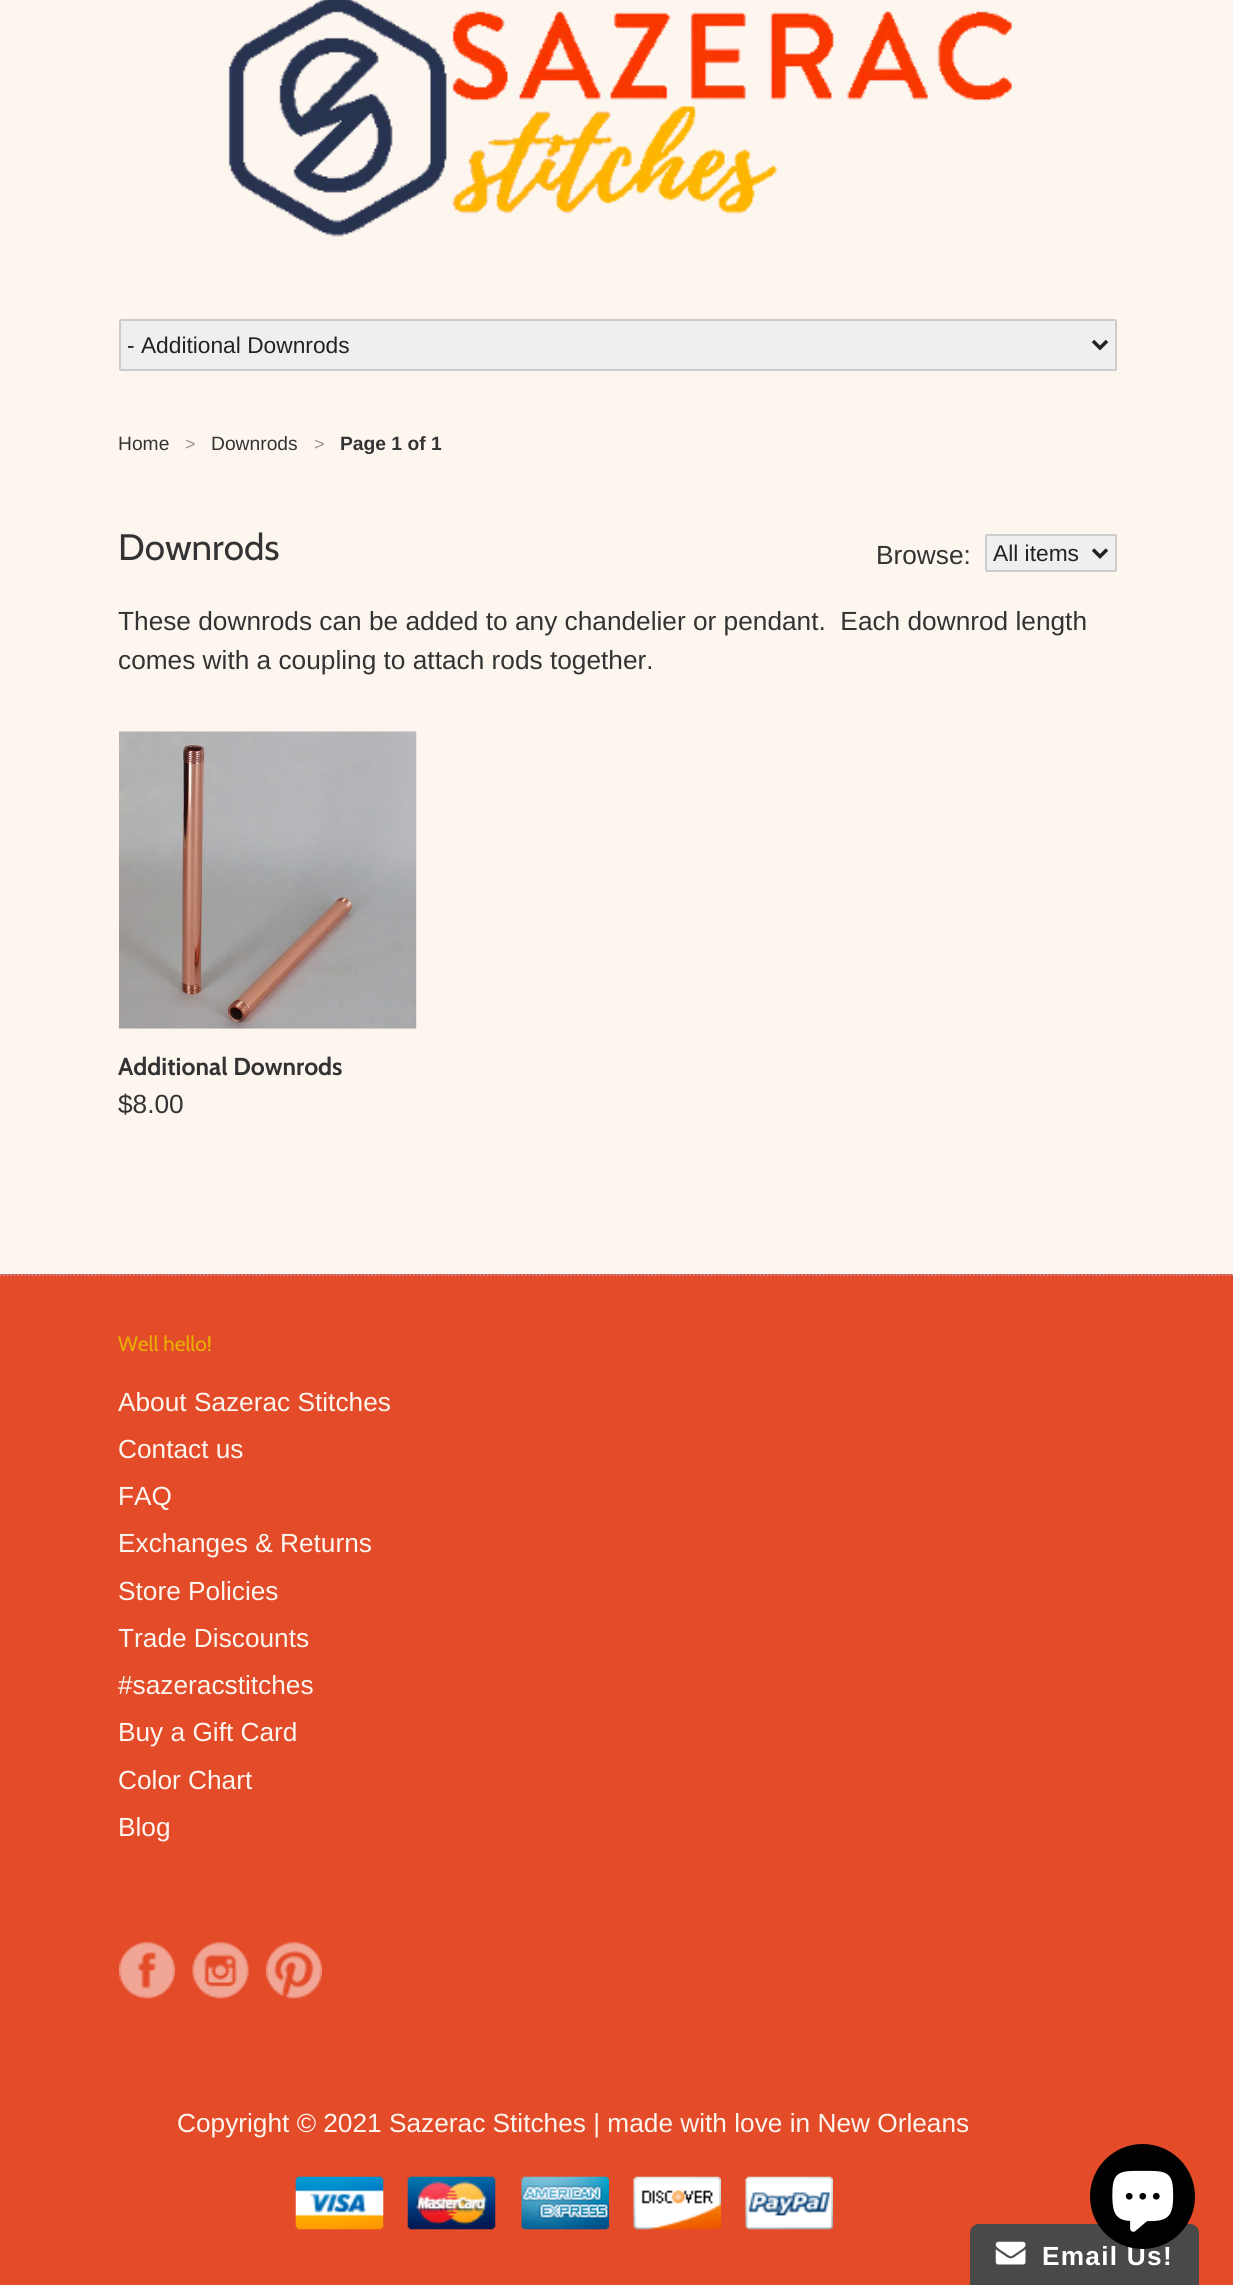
#include <cairo/cairo.h>
#include <math.h>
#include <stddef.h>

static cairo_t *cr;

static void use_color(int r, int g, int b) {
  cairo_set_source_rgb(cr, r / 255.0, g / 255.0, b / 255.0);
}

static void text(double x, double y, const char *s, const char *family, double size, int italic, int bold, int r, int g, int b) {
  cairo_select_font_face(cr, family, italic ? CAIRO_FONT_SLANT_ITALIC : CAIRO_FONT_SLANT_NORMAL,
    bold ? CAIRO_FONT_WEIGHT_BOLD : CAIRO_FONT_WEIGHT_NORMAL);
  cairo_set_font_size(cr, size);
  use_color(r, g, b);
  cairo_move_to(cr, x, y);
  cairo_show_text(cr, s);
}

static void spaced_text(double x, double y, const char *s, double letter, double word) {
  cairo_move_to(cr, x, y);
  while (*s) {
    char ch[5] = {0};
    int n = 0;
    do ch[n++] = *s++; while ((*s & 0xC0) == 0x80);
    cairo_show_text(cr, ch);
    cairo_rel_move_to(cr, letter + word * (*ch == ' '), 0);
  }
}

static void box(double x, double y, double w, double h, int r, int g, int b) {
  use_color(r, g, b);
  cairo_rectangle(cr, x, y, w, h);
  cairo_fill(cr);
}

static void round_rect(double x, double y, double w, double h, double r) {
  cairo_new_sub_path(cr);
  cairo_arc(cr, x + w - r, y + h - r, r, 0, M_PI / 2);
  cairo_arc(cr, x + r, y + h - r, r, M_PI / 2, M_PI);
  cairo_arc(cr, x + r, y + r, r, M_PI, 1.5 * M_PI);
  cairo_arc(cr, x + w - r, y + r, r, 1.5 * M_PI, 2 * M_PI);
  cairo_close_path(cr);
}

static void picture(const char *path, double x, double y, double w, double h) {
  cairo_surface_t *image = cairo_image_surface_create_from_png(path);
  cairo_save(cr);
  cairo_set_source_surface(cr, image, x, y);
  cairo_rectangle(cr, x, y, w, h);
  cairo_fill(cr);
  cairo_restore(cr);
  cairo_surface_destroy(image);
}

static void draw(void) {
  use_color(253, 246, 239);
  cairo_paint(cr);
  picture("img_01.png", 228, 0, 784, 237);
  use_color(239, 239, 239);
  round_rect(120, 320, 996, 50, 1);
  cairo_fill_preserve(cr);
  use_color(204, 204, 204);
  cairo_stroke(cr);
  cairo_new_path(cr);
  cairo_move_to(cr, 1093, 341);
  cairo_line_to(cr, 1100, 348);
  cairo_line_to(cr, 1107, 341);
  use_color(34, 34, 34);
  cairo_set_line_width(cr, 3.5);
  cairo_stroke(cr);
  use_color(239, 239, 239);
  round_rect(986, 535, 130, 36, 1);
  cairo_fill_preserve(cr);
  use_color(204, 204, 204);
  cairo_set_line_width(cr, 2);
  cairo_stroke(cr);
  cairo_new_path(cr);
  cairo_move_to(cr, 1093, 549.5);
  cairo_line_to(cr, 1100, 556.5);
  cairo_line_to(cr, 1107, 549.5);
  use_color(34, 34, 34);
  cairo_set_line_width(cr, 3.5);
  cairo_stroke(cr);
  picture("img_02.png", 119, 731, 298, 298);
  box(0, 1274, 1233, 1011, 227, 75, 41);
  cairo_new_path(cr);
  cairo_move_to(cr, 0, 1275);
  cairo_line_to(cr, 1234, 1275);
  use_color(200, 135, 168);
  cairo_set_line_width(cr, 1.8);
  cairo_set_dash(cr, (double[]){1.75, 1.75}, 2, 0);
  cairo_stroke(cr);
  picture("img_03.png", 119, 1942, 56, 57);
  picture("img_04.png", 192, 1942, 57, 57);
  picture("img_05.png", 266, 1942, 56, 57);
  picture("img_06.png", 295, 2176, 89, 54);
  picture("img_07.png", 407, 2176, 89, 54);
  picture("img_08.png", 521, 2176, 88, 54);
  picture("img_09.png", 633, 2176, 88, 54);
  picture("img_10.png", 745, 2176, 88, 54);
  use_color(73, 73, 73);
  cairo_new_path(cr);
  cairo_move_to(cr, 979, 2224);
  cairo_line_to(cr, 1190, 2224);
  cairo_curve_to(cr, 1195, 2224, 1199, 2228, 1199, 2233);
  cairo_line_to(cr, 1199, 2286);
  cairo_line_to(cr, 970, 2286);
  cairo_line_to(cr, 970, 2233);
  cairo_curve_to(cr, 970, 2228, 974, 2224, 979, 2224);
  cairo_close_path(cr);
  cairo_fill(cr);
  picture("img_12.png", 995, 2241, 31, 24);
  text(127, 353, "- Additional Downrods", "Liberation Sans", 22.75, 0, 0, 34, 34, 34);
  text(118, 450, "Home", "Liberation Sans", 19.25, 0, 0, 51, 51, 51);
  text(185, 450, ">", "Liberation Sans", 18, 0, 0, 152, 149, 145);
  text(211, 450, "Downrods", "Liberation Sans", 19.25, 0, 0, 51, 51, 51);
  text(314, 450, ">", "Liberation Sans", 18, 0, 0, 152, 149, 145);
  text(340, 450, "Page 1 of 1", "Liberation Sans", 19.25, 0, 1, 51, 51, 51);
  text(118, 560, "Downrods", "Cabin", 36.75, 0, 0, 51, 51, 51);
  text(876, 564, "Browse:", "Liberation Sans", 26.25, 0, 0, 51, 51, 51);
  text(993, 561, "All items", "Liberation Sans", 22.75, 0, 0, 34, 34, 34);
  text(118, 630, "These downrods can be added to any chandelier or pendant.  Each downrod length", "Liberation Sans", 26.25, 0, 0, 51, 51, 51);
  text(118, 669, "comes with a coupling to attach rods together.", "Liberation Sans", 26.25, 0, 0, 51, 51, 51);
  text(118, 1075, "Additional Downrods", "Cabin", 24.5, 0, 1, 51, 51, 51);
  text(118, 1113, "$8.00", "Liberation Sans", 26.25, 0, 0, 51, 51, 51);
  text(118, 1351, "Well hello!", "Cabin", 21, 0, 0, 232, 176, 3);
  text(118, 1411, "About Sazerac Stitches", "Liberation Sans", 26.25, 0, 0, 253, 246, 239);
  text(118, 1458, "Contact us", "Liberation Sans", 26.25, 0, 0, 253, 246, 239);
  text(118, 1505, "FAQ", "Liberation Sans", 26.25, 0, 0, 253, 246, 239);
  text(118, 1552, "Exchanges & Returns", "Liberation Sans", 26.25, 0, 0, 253, 246, 239);
  text(118, 1600, "Store Policies", "Liberation Sans", 26.25, 0, 0, 253, 246, 239);
  text(118, 1647, "Trade Discounts", "Liberation Sans", 26.25, 0, 0, 253, 246, 239);
  text(118, 1694, "#sazeracstitches", "Liberation Sans", 26.25, 0, 0, 253, 246, 239);
  text(118, 1741, "Buy a Gift Card", "Liberation Sans", 26.25, 0, 0, 253, 246, 239);
  text(118, 1789, "Color Chart", "Liberation Sans", 26.25, 0, 0, 253, 246, 239);
  text(118, 1836, "Blog", "Liberation Sans", 26.25, 0, 0, 253, 246, 239);
  text(177, 2132, "Copyright © 2021 Sazerac Stitches | made with love in New Orleans", "Liberation Sans", 26.25, 0, 0, 253, 246, 239);
  cairo_select_font_face(cr, "Liberation Sans", CAIRO_FONT_SLANT_NORMAL, CAIRO_FONT_WEIGHT_BOLD);
  use_color(255, 255, 255);
  spaced_text(1042, 2265, "Email Us!", 1.25, 0);
  use_color(0, 0, 0);
  cairo_new_path(cr);
  cairo_arc(cr, 1142.5, 2196.5, 52.5, 0, 2 * M_PI);
  cairo_fill(cr);
  picture("img_11.png", 1112, 2170, 62, 62);
}

int main(void) {
  cairo_surface_t *surface = cairo_image_surface_create(CAIRO_FORMAT_RGB24, 1233, 2285);
  cr = cairo_create(surface);
  cairo_font_options_t *options = cairo_font_options_create();
  cairo_font_options_set_hint_metrics(options, CAIRO_HINT_METRICS_OFF);
  cairo_font_options_set_hint_style(options, CAIRO_HINT_STYLE_NONE);
  cairo_set_font_options(cr, options);
  cairo_set_miter_limit(cr, 4);
  draw();
  cairo_surface_write_to_png(surface, "out.png");
  cairo_font_options_destroy(options);
  cairo_destroy(cr);
  cairo_surface_destroy(surface);
  return 0;
}
